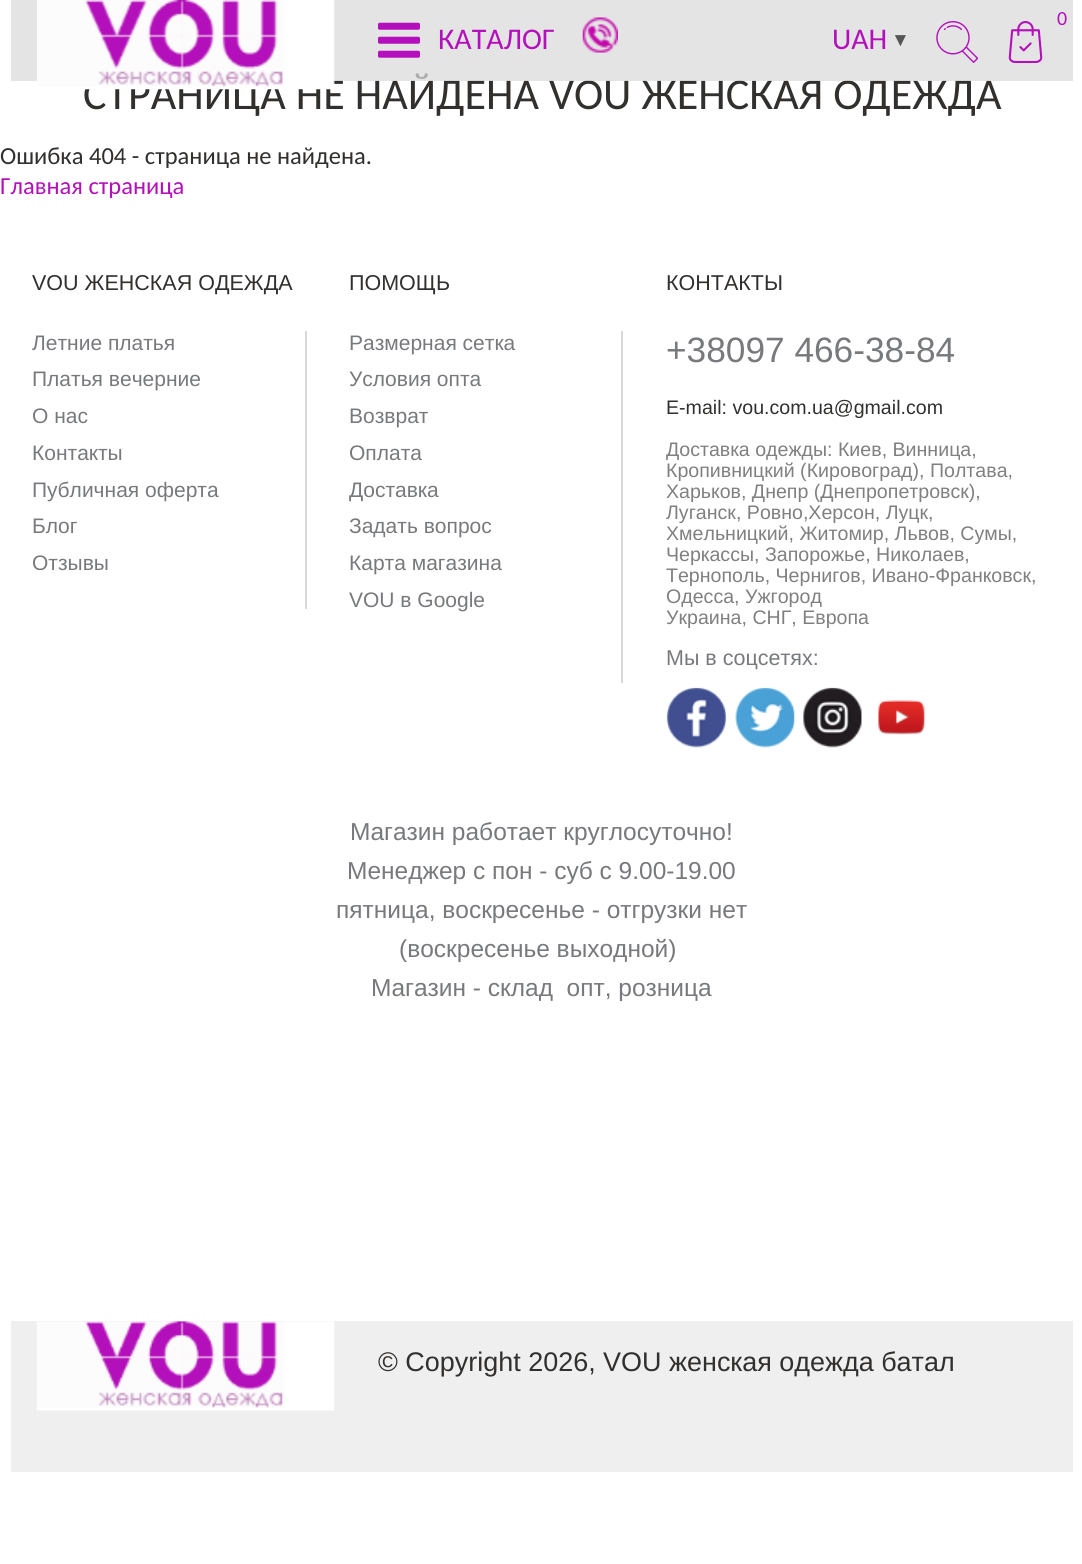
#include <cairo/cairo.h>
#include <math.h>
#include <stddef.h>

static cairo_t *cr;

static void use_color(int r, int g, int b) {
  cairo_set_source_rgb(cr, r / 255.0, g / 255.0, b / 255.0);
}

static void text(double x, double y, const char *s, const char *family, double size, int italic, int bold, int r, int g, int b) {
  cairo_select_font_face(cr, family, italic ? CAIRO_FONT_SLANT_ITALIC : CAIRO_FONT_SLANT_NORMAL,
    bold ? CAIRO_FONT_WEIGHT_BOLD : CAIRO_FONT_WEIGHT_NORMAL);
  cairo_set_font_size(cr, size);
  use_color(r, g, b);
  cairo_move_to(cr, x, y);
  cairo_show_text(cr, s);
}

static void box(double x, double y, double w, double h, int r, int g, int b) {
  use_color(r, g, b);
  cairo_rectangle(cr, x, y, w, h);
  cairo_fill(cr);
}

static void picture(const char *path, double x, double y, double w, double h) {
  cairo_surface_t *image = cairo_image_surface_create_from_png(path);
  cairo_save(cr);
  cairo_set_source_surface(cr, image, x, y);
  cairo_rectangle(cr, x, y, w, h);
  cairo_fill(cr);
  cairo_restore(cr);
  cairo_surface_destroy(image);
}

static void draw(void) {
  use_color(255, 255, 255);
  cairo_paint(cr);
  box(305, 331, 2, 278, 215, 216, 218);
  box(621, 331, 2, 352, 215, 216, 218);
  picture("img_06.png", 666, 687, 61, 61);
  picture("img_07.png", 735, 687, 60, 61);
  picture("img_08.png", 803, 687, 59, 61);
  picture("img_09.png", 878, 700, 47, 35);
  box(11, 1321, 1062, 151, 239, 239, 239);
  picture("img_10.png", 36, 1321, 299, 90);
  text(83, 109, "СТРАНИЦА НЕ НАЙДЕНА VOU ЖЕНСКАЯ ОДЕЖДА", "Carlito", 44.1, 0, 0, 50, 48, 46);
  cairo_set_source_rgba(cr, 0.851, 0.851, 0.851, 0.73);
  cairo_rectangle(cr, 11, 0, 1062, 81);
  cairo_fill(cr);
  text(832, 49, "UAH", "Carlito", 30, 0, 0, 179, 15, 186);
  text(891, 46, "▼", "Liberation Sans", 19, 0, 0, 85, 85, 85);
  picture("img_05.png", 936, 21, 42, 42);
  text(1057, 25, "0", "Carlito", 20, 0, 0, 179, 15, 186);
  picture("img_02.png", 1008, 21, 35, 42);
  picture("img_04.png", 582, 17, 36, 36);
  picture("img_03.png", 378, 22, 42, 36);
  text(438, 49, "КАТАЛОГ", "Carlito", 30, 0, 0, 179, 15, 186);
  picture("img_01.png", 37, 0, 298, 90);
  text(0, 164, "Ошибка 404 - страница не найдена.", "Carlito", 24.5, 0, 0, 50, 48, 46);
  text(0, 194, "Главная страница", "Carlito", 24.5, 0, 0, 179, 15, 186);
  text(32, 290, "VOU ЖЕНСКАЯ ОДЕЖДА", "Liberation Sans", 21.5, 0, 0, 50, 48, 46);
  text(32, 350, "Летние платья", "Liberation Sans", 21, 0, 0, 119, 121, 124);
  text(32, 386, "Платья вечерние", "Liberation Sans", 21, 0, 0, 119, 121, 124);
  text(32, 423, "О нас", "Liberation Sans", 21, 0, 0, 119, 121, 124);
  text(32, 460, "Контакты", "Liberation Sans", 21, 0, 0, 119, 121, 124);
  text(32, 497, "Публичная оферта", "Liberation Sans", 21, 0, 0, 119, 121, 124);
  text(32, 533, "Блог", "Liberation Sans", 21, 0, 0, 119, 121, 124);
  text(32, 570, "Отзывы", "Liberation Sans", 21, 0, 0, 119, 121, 124);
  text(349, 290, "ПОМОЩЬ", "Liberation Sans", 21.5, 0, 0, 50, 48, 46);
  text(349, 350, "Размерная сетка", "Liberation Sans", 21, 0, 0, 119, 121, 124);
  text(349, 386, "Условия опта", "Liberation Sans", 21, 0, 0, 119, 121, 124);
  text(349, 423, "Возврат", "Liberation Sans", 21, 0, 0, 119, 121, 124);
  text(349, 460, "Оплата", "Liberation Sans", 21, 0, 0, 119, 121, 124);
  text(349, 497, "Доставка", "Liberation Sans", 21, 0, 0, 119, 121, 124);
  text(349, 533, "Задать вопрос", "Liberation Sans", 21, 0, 0, 119, 121, 124);
  text(349, 570, "Карта магазина", "Liberation Sans", 21, 0, 0, 119, 121, 124);
  text(349, 607, "VOU в Google", "Liberation Sans", 21, 0, 0, 119, 121, 124);
  text(666, 290, "КОНТАКТЫ", "Liberation Sans", 21.5, 0, 0, 50, 48, 46);
  text(666, 362, "+38097 466-38-84", "Liberation Sans", 35.25, 0, 0, 119, 121, 124);
  text(666, 414, "E-mail: vou.com.ua@gmail.com", "Liberation Sans", 19.6, 0, 0, 50, 48, 46);
  text(666, 456, "Доставка одежды: Киев, Винница,", "Liberation Sans", 19.6, 0, 0, 128, 128, 128);
  text(666, 477, "Кропивницкий (Кировоград), Полтава,", "Liberation Sans", 19.6, 0, 0, 128, 128, 128);
  text(666, 498, "Харьков, Днепр (Днепропетровск),", "Liberation Sans", 19.6, 0, 0, 128, 128, 128);
  text(666, 519, "Луганск, Ровно,Херсон, Луцк,", "Liberation Sans", 19.6, 0, 0, 128, 128, 128);
  text(666, 540, "Хмельницкий, Житомир, Львов, Сумы,", "Liberation Sans", 19.6, 0, 0, 128, 128, 128);
  text(666, 561, "Черкассы, Запорожье, Николаев,", "Liberation Sans", 19.6, 0, 0, 128, 128, 128);
  text(666, 582, "Тернополь, Чернигов, Ивано-Франковск,", "Liberation Sans", 19.6, 0, 0, 128, 128, 128);
  text(666, 603, "Одесса, Ужгород", "Liberation Sans", 19.6, 0, 0, 128, 128, 128);
  text(666, 624, "Украина, СНГ, Европа", "Liberation Sans", 19.6, 0, 0, 128, 128, 128);
  text(666, 665, "Мы в соцсетях:", "Liberation Sans", 21.5, 0, 0, 119, 121, 124);
  text(350, 840, "Магазин работает круглосуточно!", "Liberation Sans", 24.5, 0, 0, 119, 121, 124);
  text(347, 879, "Менеджер с пон - суб с 9.00-19.00", "Liberation Sans", 24.5, 0, 0, 119, 121, 124);
  text(336, 918, "пятница, воскресенье - отгрузки нет", "Liberation Sans", 24.5, 0, 0, 119, 121, 124);
  text(399, 957, "(воскресенье выходной)", "Liberation Sans", 24.5, 0, 0, 119, 121, 124);
  text(371, 996, "Магазин - склад  опт, розница", "Liberation Sans", 24.5, 0, 0, 119, 121, 124);
  text(378, 1371, "© Copyright 2026, VOU женская одежда батал", "Liberation Sans", 26.95, 0, 0, 50, 48, 46);
}

int main(void) {
  cairo_surface_t *surface = cairo_image_surface_create(CAIRO_FORMAT_RGB24, 1082, 1564);
  cr = cairo_create(surface);
  cairo_font_options_t *options = cairo_font_options_create();
  cairo_font_options_set_hint_metrics(options, CAIRO_HINT_METRICS_OFF);
  cairo_font_options_set_hint_style(options, CAIRO_HINT_STYLE_NONE);
  cairo_set_font_options(cr, options);
  cairo_set_miter_limit(cr, 4);
  draw();
  cairo_surface_write_to_png(surface, "out.png");
  cairo_font_options_destroy(options);
  cairo_destroy(cr);
  cairo_surface_destroy(surface);
  return 0;
}
